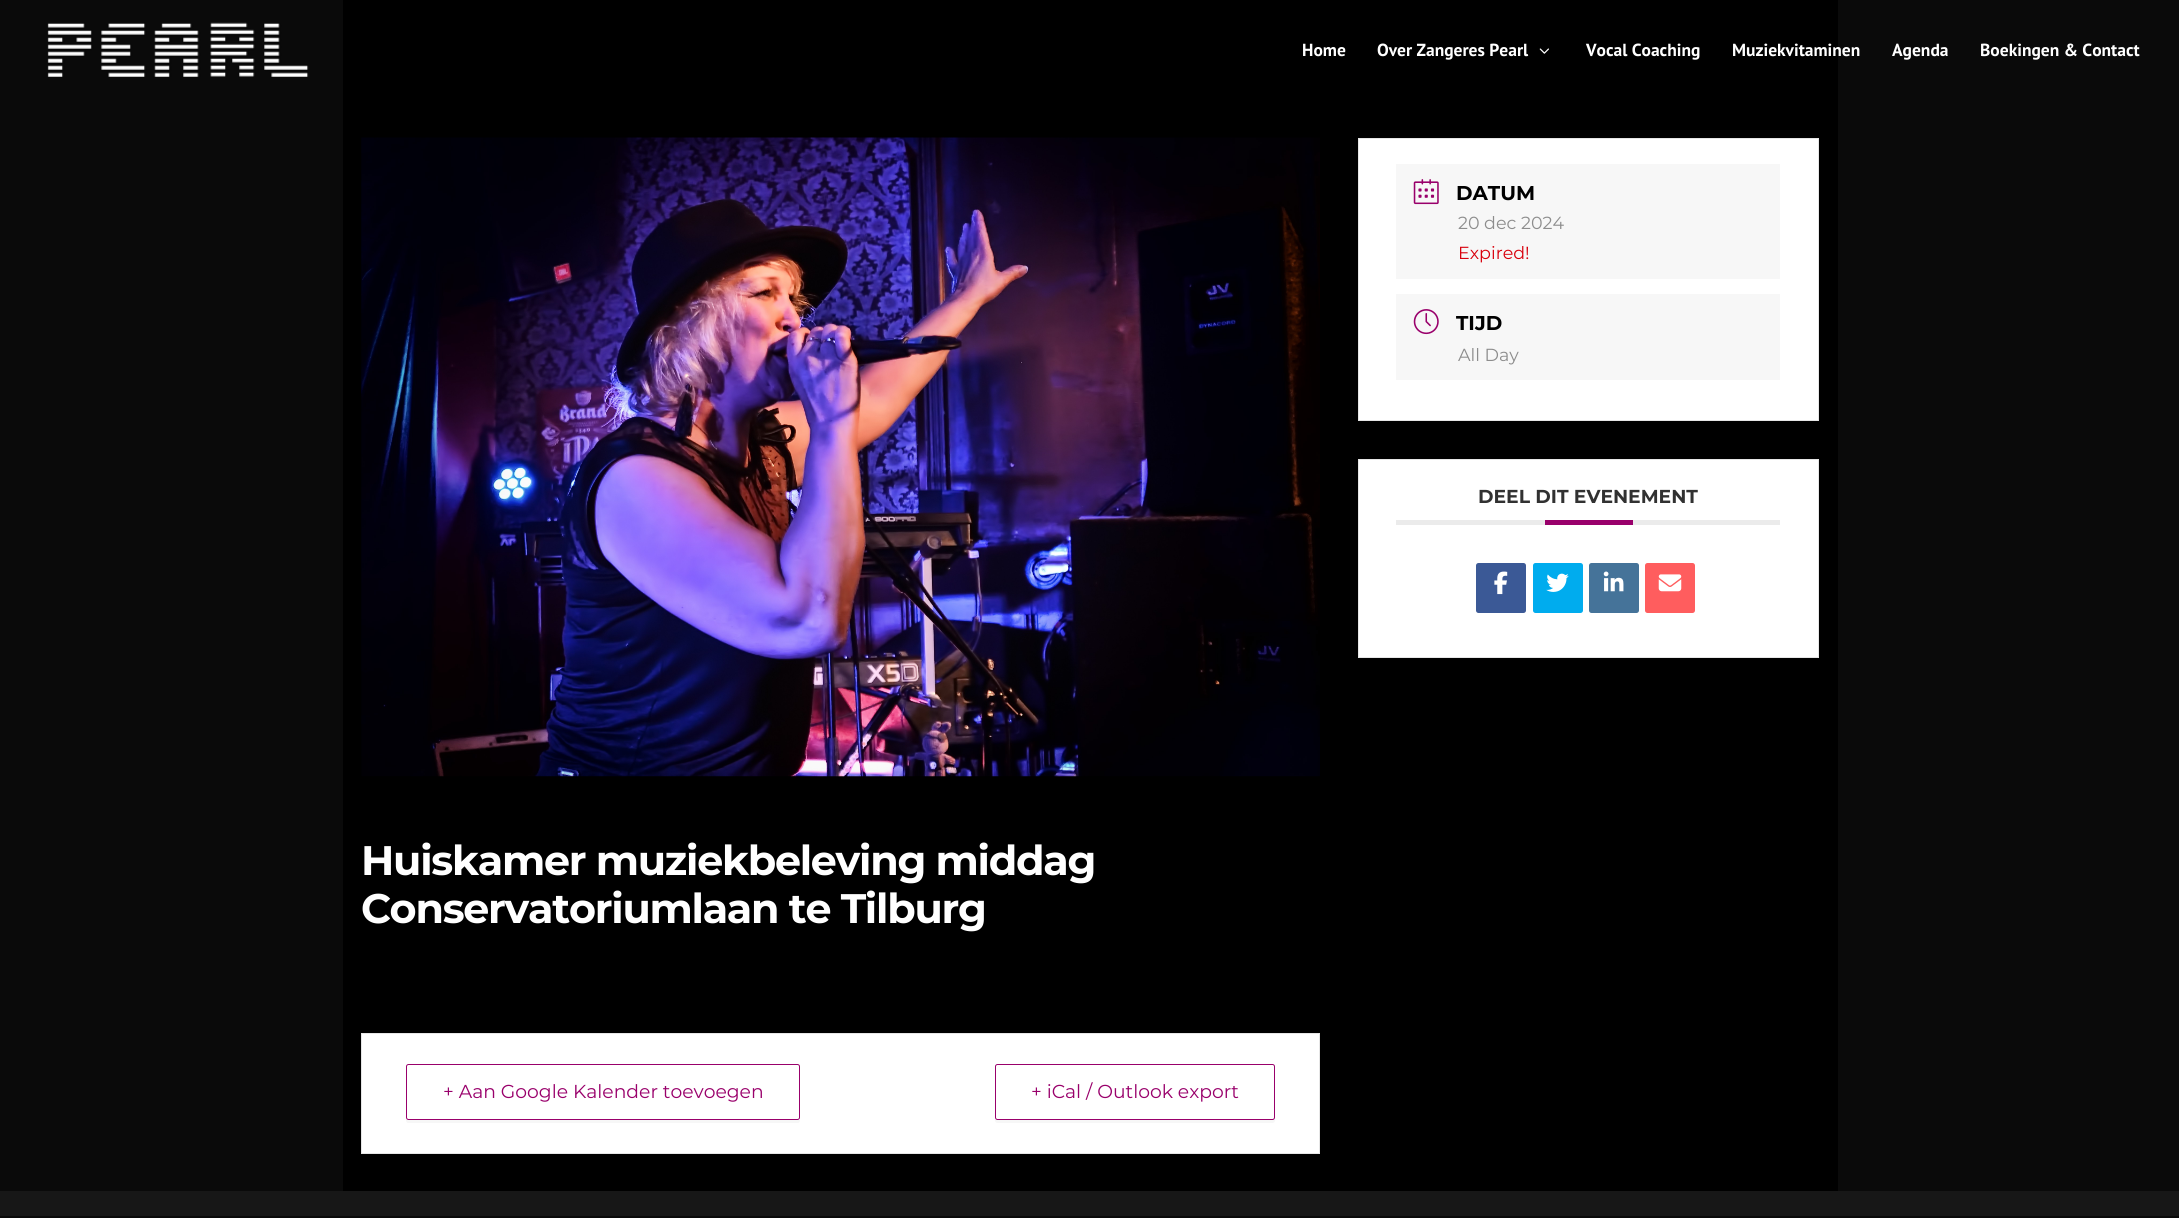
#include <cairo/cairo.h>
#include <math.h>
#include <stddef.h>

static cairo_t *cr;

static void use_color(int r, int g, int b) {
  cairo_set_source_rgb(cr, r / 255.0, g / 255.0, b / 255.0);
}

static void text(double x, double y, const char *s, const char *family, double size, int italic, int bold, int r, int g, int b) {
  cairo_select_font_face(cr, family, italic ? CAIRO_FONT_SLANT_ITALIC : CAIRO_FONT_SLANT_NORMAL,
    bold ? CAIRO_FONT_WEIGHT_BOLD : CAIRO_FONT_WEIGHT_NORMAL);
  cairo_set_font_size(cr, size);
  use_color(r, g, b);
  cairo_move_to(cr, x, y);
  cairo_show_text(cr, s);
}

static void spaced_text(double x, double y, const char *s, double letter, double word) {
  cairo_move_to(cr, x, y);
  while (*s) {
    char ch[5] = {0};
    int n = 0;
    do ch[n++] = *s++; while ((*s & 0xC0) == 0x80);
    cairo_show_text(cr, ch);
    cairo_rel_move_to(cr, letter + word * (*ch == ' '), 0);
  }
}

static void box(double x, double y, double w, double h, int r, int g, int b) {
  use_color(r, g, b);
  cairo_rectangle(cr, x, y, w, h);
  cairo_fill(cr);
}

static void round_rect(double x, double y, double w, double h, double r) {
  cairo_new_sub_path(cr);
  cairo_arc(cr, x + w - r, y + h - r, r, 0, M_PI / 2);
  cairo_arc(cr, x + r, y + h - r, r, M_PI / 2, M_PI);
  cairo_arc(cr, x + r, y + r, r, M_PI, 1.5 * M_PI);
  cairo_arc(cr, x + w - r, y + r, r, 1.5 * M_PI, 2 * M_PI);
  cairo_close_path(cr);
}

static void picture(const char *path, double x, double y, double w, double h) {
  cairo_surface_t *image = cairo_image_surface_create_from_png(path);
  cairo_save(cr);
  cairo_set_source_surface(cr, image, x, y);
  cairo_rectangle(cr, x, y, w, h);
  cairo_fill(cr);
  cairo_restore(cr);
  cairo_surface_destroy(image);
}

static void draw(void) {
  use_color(10, 10, 10);
  cairo_paint(cr);
  picture("img_01.png", 47, 22, 262, 55);
  box(343, 0, 1495, 1191, 0, 0, 0);
  picture("img_02.png", 1539, 48, 10, 6);
  use_color(255, 255, 255);
  cairo_rectangle(cr, 1358.5, 138.5, 460, 282);
  cairo_fill_preserve(cr);
  use_color(230, 230, 230);
  cairo_set_line_width(cr, 1);
  cairo_stroke(cr);
  box(1396, 164, 384, 115, 247, 247, 247);
  picture("img_03.png", 1413, 179, 26, 26);
  box(1396, 294, 384, 86, 247, 247, 247);
  picture("img_04.png", 1413, 309, 26, 26);
  use_color(255, 255, 255);
  cairo_rectangle(cr, 1358.5, 459.5, 460, 198);
  cairo_fill_preserve(cr);
  use_color(230, 230, 230);
  cairo_stroke(cr);
  box(1396, 520, 384, 5, 235, 235, 235);
  box(1545, 520, 88, 5, 153, 0, 107);
  use_color(59, 89, 150);
  round_rect(1476, 563, 50, 50, 2.5);
  cairo_fill(cr);
  picture("img_05.png", 1494, 571, 14, 24);
  use_color(0, 172, 238);
  round_rect(1533, 563, 50, 50, 2.5);
  cairo_fill(cr);
  picture("img_06.png", 1546, 573, 23, 19);
  use_color(69, 115, 153);
  round_rect(1589, 563, 50, 50, 2.5);
  cairo_fill(cr);
  picture("img_07.png", 1603, 571, 21, 21);
  use_color(255, 93, 94);
  round_rect(1645, 563, 50, 50, 2.5);
  cairo_fill(cr);
  picture("img_08.png", 1658, 574, 24, 18);
  picture("img_09.png", 361, 137, 959, 640);
  use_color(255, 255, 255);
  cairo_rectangle(cr, 361.5, 1033.5, 958, 120);
  cairo_fill_preserve(cr);
  use_color(230, 230, 230);
  cairo_stroke(cr);
  use_color(247, 247, 247);
  cairo_new_path(cr);
  cairo_move_to(cr, 406, 1067);
  cairo_line_to(cr, 406, 1120);
  cairo_curve_to(cr, 406, 1122, 407, 1123, 408, 1123);
  cairo_line_to(cr, 798, 1123);
  cairo_curve_to(cr, 799, 1123, 800, 1122, 800, 1120);
  cairo_line_to(cr, 800, 1118);
  cairo_curve_to(cr, 800, 1119, 799, 1120, 798, 1120);
  cairo_line_to(cr, 409, 1120);
  cairo_curve_to(cr, 407, 1120, 406, 1119, 406, 1118);
  cairo_close_path(cr);
  cairo_fill(cr);
  round_rect(406.5, 1064.5, 393, 55, 2);
  use_color(153, 0, 107);
  cairo_stroke(cr);
  use_color(247, 247, 247);
  cairo_new_path(cr);
  cairo_move_to(cr, 995, 1118);
  cairo_curve_to(cr, 995, 1119, 994, 1122, 997, 1123);
  cairo_line_to(cr, 1273, 1123);
  cairo_curve_to(cr, 1276, 1122, 1275, 1119, 1275, 1118);
  cairo_curve_to(cr, 1275, 1119, 1274, 1120, 1272, 1120);
  cairo_line_to(cr, 998, 1120);
  cairo_curve_to(cr, 996, 1120, 995, 1119, 995, 1118);
  cairo_close_path(cr);
  cairo_fill(cr);
  round_rect(995.5, 1064.5, 279, 55, 2);
  use_color(153, 0, 107);
  cairo_stroke(cr);
  box(0, 1191, 2179, 25, 23, 23, 23);
  text(1302, 56, "Home", "PT Sans", 17.5, 0, 1, 255, 255, 255);
  text(1377, 56, "Over Zangeres Pearl", "PT Sans", 17.5, 0, 1, 255, 255, 255);
  text(1586, 56, "Vocal Coaching", "PT Sans", 17.5, 0, 1, 255, 255, 255);
  text(1732, 56, "Muziekvitaminen", "PT Sans", 17.5, 0, 1, 255, 255, 255);
  text(1892, 56, "Agenda", "PT Sans", 17.5, 0, 1, 255, 255, 255);
  text(1980, 56, "Boekingen & Contact", "PT Sans", 17.5, 0, 1, 255, 255, 255);
  text(1456, 200, "DATUM", "Montserrat", 20, 0, 1, 0, 0, 0);
  text(1458, 229, "20 dec 2024", "Montserrat", 17.5, 0, 0, 141, 141, 141);
  text(1458, 259, "Expired!", "Montserrat", 17.5, 0, 0, 216, 0, 12);
  text(1456, 330, "TIJD", "Montserrat", 20, 0, 1, 0, 0, 0);
  text(1458, 361, "All Day", "Montserrat", 17.5, 0, 0, 141, 141, 141);
  text(1478, 503, "DEEL DIT EVENEMENT", "Montserrat", 18.75, 0, 1, 49, 49, 49);
  cairo_set_font_size(cr, 41.25);
  use_color(255, 255, 255);
  spaced_text(361, 875, "Huiskamer muziekbeleving middag", -1.25, 0);
  spaced_text(361, 923, "Conservatoriumlaan te Tilburg", -1.25, 0);
  text(443, 1098, "+ Aan Google Kalender toevoegen", "Montserrat", 18.75, 0, 0, 153, 0, 107);
  text(1031, 1098, "+ iCal / Outlook export", "Montserrat", 18.75, 0, 0, 153, 0, 107);
}

int main(void) {
  cairo_surface_t *surface = cairo_image_surface_create(CAIRO_FORMAT_RGB24, 2179, 1218);
  cr = cairo_create(surface);
  cairo_font_options_t *options = cairo_font_options_create();
  cairo_font_options_set_hint_metrics(options, CAIRO_HINT_METRICS_OFF);
  cairo_font_options_set_hint_style(options, CAIRO_HINT_STYLE_NONE);
  cairo_set_font_options(cr, options);
  cairo_set_miter_limit(cr, 4);
  draw();
  cairo_surface_write_to_png(surface, "out.png");
  cairo_font_options_destroy(options);
  cairo_destroy(cr);
  cairo_surface_destroy(surface);
  return 0;
}
